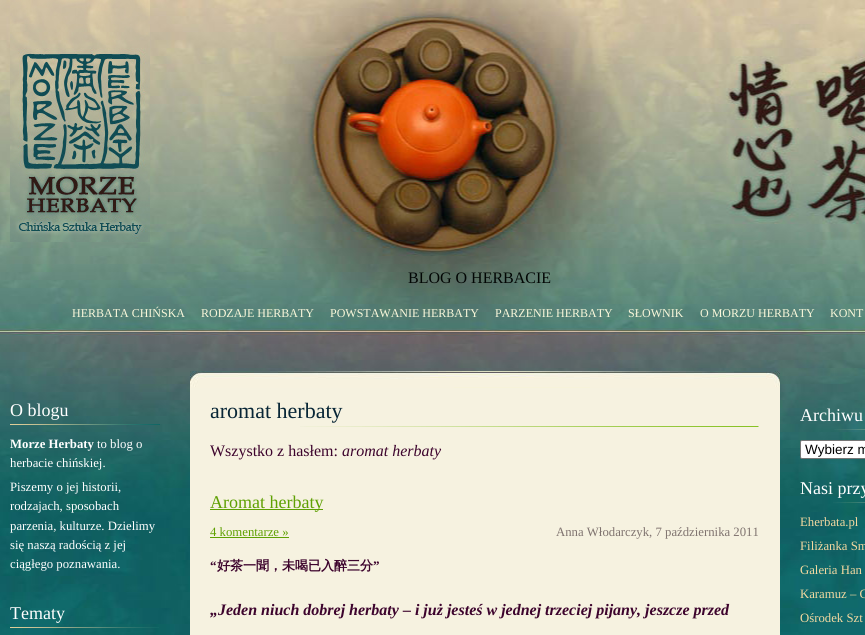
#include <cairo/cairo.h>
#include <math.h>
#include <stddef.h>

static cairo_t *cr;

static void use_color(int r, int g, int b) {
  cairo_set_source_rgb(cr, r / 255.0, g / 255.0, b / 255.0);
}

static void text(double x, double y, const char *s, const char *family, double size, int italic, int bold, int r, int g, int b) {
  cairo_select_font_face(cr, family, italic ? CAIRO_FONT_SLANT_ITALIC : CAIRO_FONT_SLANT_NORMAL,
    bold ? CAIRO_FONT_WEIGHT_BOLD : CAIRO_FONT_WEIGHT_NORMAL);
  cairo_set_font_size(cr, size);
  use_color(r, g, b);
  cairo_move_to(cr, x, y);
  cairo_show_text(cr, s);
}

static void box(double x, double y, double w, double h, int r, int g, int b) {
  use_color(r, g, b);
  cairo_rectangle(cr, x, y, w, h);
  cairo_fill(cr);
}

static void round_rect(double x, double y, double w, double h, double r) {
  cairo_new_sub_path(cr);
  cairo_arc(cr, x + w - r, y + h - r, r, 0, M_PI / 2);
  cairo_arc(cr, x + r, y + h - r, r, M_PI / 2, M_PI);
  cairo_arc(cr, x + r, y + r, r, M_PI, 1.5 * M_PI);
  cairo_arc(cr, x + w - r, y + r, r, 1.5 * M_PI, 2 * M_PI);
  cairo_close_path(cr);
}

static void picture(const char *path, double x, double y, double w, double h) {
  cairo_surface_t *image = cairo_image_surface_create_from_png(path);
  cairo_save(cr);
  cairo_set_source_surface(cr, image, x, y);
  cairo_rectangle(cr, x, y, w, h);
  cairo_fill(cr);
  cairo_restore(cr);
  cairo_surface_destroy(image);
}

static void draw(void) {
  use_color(255, 255, 255);
  cairo_paint(cr);
  picture("img_01.png", 0, 0, 865, 635);
  picture("img_02.png", 10, 0, 140, 242);
  picture("img_03.png", 10, 424, 150, 1);
  picture("img_04.png", 10, 627, 149, 1);
  box(190, 388, 590, 247, 246, 242, 224);
  picture("img_05.png", 190, 371, 590, 17);
  picture("img_06.png", 300, 426, 459, 1);
  box(210, 509, 113, 1, 95, 160, 3);
  box(210, 537, 79, 1, 95, 160, 3);
  picture("img_07.png", 834, 429, 31, 1);
  use_color(255, 255, 255);
  round_rect(800.5, 440.5, 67, 18, 1.5);
  cairo_fill_preserve(cr);
  use_color(118, 118, 118);
  cairo_set_line_width(cr, 1);
  cairo_stroke(cr);
  picture("img_08.png", 833, 502, 32, 1);
  text(408, 283, "BLOG O HERBACIE", "Liberation Serif", 16, 0, 0, 2, 6, 4);
  text(72, 317, "HERBATA CHIŃSKA", "Liberation Serif", 12, 0, 0, 249, 247, 218);
  text(201, 317, "RODZAJE HERBATY", "Liberation Serif", 12, 0, 0, 249, 247, 218);
  text(330, 317, "POWSTAWANIE HERBATY", "Liberation Serif", 12, 0, 0, 249, 247, 218);
  text(495, 317, "PARZENIE HERBATY", "Liberation Serif", 12, 0, 0, 249, 247, 218);
  text(628, 317, "SŁOWNIK", "Liberation Serif", 12, 0, 0, 249, 247, 218);
  text(700, 317, "O MORZU HERBATY", "Liberation Serif", 12, 0, 0, 249, 247, 218);
  text(830, 317, "KONT", "Liberation Serif", 12, 0, 0, 249, 247, 218);
  text(10, 416, "O blogu", "Liberation Serif", 18, 0, 0, 255, 255, 255);
  text(10, 448, "Morze Herbaty", "Liberation Serif", 12.75, 0, 1, 255, 255, 255);
  text(97, 448, "to blog o", "Liberation Serif", 12.75, 0, 0, 255, 255, 255);
  text(10, 467, "herbacie chińskiej.", "Liberation Serif", 12.75, 0, 0, 255, 255, 255);
  text(10, 491, "Piszemy o jej historii,", "Liberation Serif", 12.75, 0, 0, 255, 255, 255);
  text(10, 510, "rodzajach, sposobach", "Liberation Serif", 12.75, 0, 0, 255, 255, 255);
  text(10, 530, "parzenia, kulturze. Dzielimy", "Liberation Serif", 12.75, 0, 0, 255, 255, 255);
  text(10, 549, "się naszą radością z jej", "Liberation Serif", 12.75, 0, 0, 255, 255, 255);
  text(10, 568, "ciągłego poznawania.", "Liberation Serif", 12.75, 0, 0, 255, 255, 255);
  text(10, 619, "Tematy", "Liberation Serif", 18, 0, 0, 255, 255, 255);
  text(210, 418, "aromat herbaty", "Liberation Serif", 22, 0, 0, 8, 38, 54);
  text(210, 456, "Wszystko z hasłem:", "Liberation Serif", 16, 0, 0, 61, 4, 45);
  text(342, 456, "aromat herbaty", "Liberation Serif", 16, 1, 0, 61, 4, 45);
  text(210, 508, "Aromat herbaty", "Liberation Serif", 18, 0, 0, 95, 160, 3);
  text(210, 536, "4 komentarze »", "Liberation Serif", 12.75, 0, 0, 95, 160, 3);
  text(556, 536, "Anna Włodarczyk, 7 października 2011", "Liberation Serif", 12.75, 0, 0, 127, 115, 111);
  text(210, 570, "“", "Liberation Serif", 13, 0, 1, 61, 4, 45);
  text(217, 570, "好茶一聞，未喝已入醉三分", "WenQuanYi Zen Hei", 13, 0, 1, 61, 4, 45);
  text(373, 570, "”", "Liberation Serif", 13, 0, 1, 61, 4, 45);
  text(210, 615, "„Jeden niuch dobrej herbaty – i już jesteś w jednej trzeciej pijany, jeszcze przed", "Liberation Serif", 16, 1, 1, 61, 4, 45);
  text(800, 421, "Archiwu", "Liberation Serif", 18, 0, 0, 255, 255, 255);
  text(805, 454, "Wybierz m", "Liberation Sans", 13.5, 0, 0, 0, 0, 0);
  text(800, 494, "Nasi przy", "Liberation Serif", 18, 0, 0, 255, 255, 255);
  text(800, 526, "Eherbata.pl", "Liberation Serif", 12.75, 0, 0, 243, 216, 160);
  text(800, 550, "Filiżanka Sm", "Liberation Serif", 12.75, 0, 0, 243, 216, 160);
  text(800, 574, "Galeria Han", "Liberation Serif", 12.75, 0, 0, 243, 216, 160);
  text(800, 598, "Karamuz – C", "Liberation Serif", 12.75, 0, 0, 243, 216, 160);
  text(800, 622, "Ośrodek Szt", "Liberation Serif", 12.75, 0, 0, 243, 216, 160);
}

int main(void) {
  cairo_surface_t *surface = cairo_image_surface_create(CAIRO_FORMAT_RGB24, 865, 635);
  cr = cairo_create(surface);
  cairo_font_options_t *options = cairo_font_options_create();
  cairo_font_options_set_hint_metrics(options, CAIRO_HINT_METRICS_OFF);
  cairo_font_options_set_hint_style(options, CAIRO_HINT_STYLE_NONE);
  cairo_set_font_options(cr, options);
  cairo_set_miter_limit(cr, 4);
  draw();
  cairo_surface_write_to_png(surface, "out.png");
  cairo_font_options_destroy(options);
  cairo_destroy(cr);
  cairo_surface_destroy(surface);
  return 0;
}
